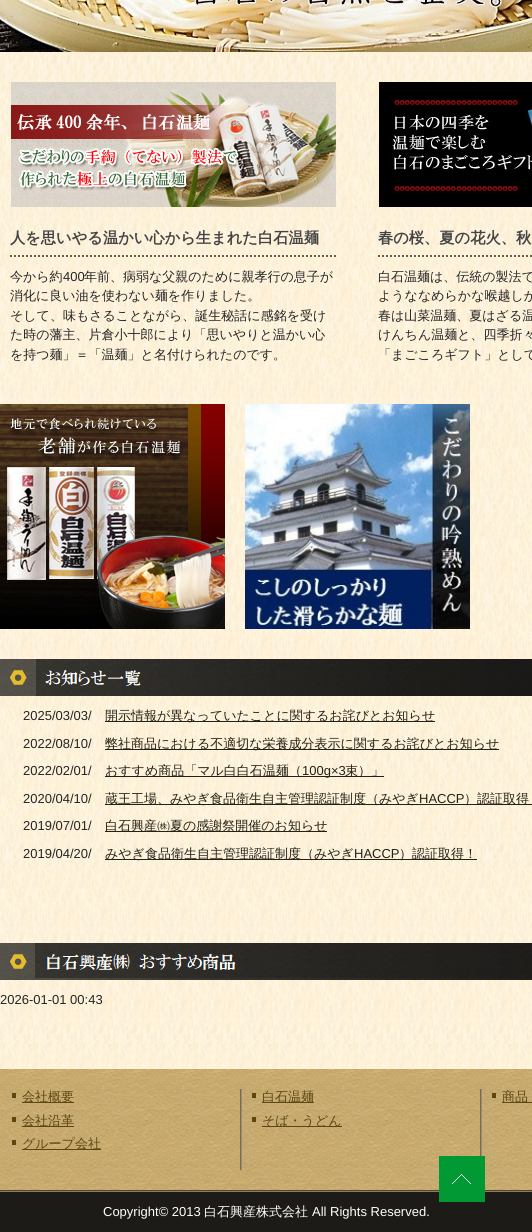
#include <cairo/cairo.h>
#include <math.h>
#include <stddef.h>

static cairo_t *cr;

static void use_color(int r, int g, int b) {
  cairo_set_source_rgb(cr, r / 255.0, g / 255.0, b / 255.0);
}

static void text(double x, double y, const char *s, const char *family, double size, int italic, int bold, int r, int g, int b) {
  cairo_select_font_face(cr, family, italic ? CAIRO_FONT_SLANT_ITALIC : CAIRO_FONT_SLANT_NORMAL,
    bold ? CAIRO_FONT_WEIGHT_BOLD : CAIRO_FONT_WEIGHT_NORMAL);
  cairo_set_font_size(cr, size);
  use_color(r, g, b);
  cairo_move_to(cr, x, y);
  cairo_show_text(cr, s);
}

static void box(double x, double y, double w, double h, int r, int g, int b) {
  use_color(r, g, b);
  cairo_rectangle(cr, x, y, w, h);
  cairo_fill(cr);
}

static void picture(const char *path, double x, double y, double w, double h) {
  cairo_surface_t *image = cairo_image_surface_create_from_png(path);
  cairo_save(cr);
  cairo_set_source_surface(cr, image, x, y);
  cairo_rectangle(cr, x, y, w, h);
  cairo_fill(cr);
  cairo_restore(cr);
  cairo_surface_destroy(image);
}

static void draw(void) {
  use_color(255, 255, 255);
  cairo_paint(cr);
  picture("img_01.png", 0, 52, 532, 1017);
  picture("img_02.png", 0, 0, 532, 52);
  picture("img_03.png", 11, 82, 325, 125);
  cairo_new_path(cr);
  cairo_move_to(cr, 10, 256);
  cairo_line_to(cr, 337, 256);
  use_color(103, 93, 72);
  cairo_set_dash(cr, (double[]){2, 2}, 2, 0);
  cairo_stroke(cr);
  picture("img_04.png", 379, 82, 153, 125);
  cairo_new_path(cr);
  cairo_move_to(cr, 378, 256);
  cairo_line_to(cr, 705, 256);
  cairo_stroke(cr);
  picture("img_05.png", 0, 404, 225, 225);
  picture("img_06.png", 245, 404, 225, 225);
  picture("img_07.png", 0, 659, 532, 37);
  box(105, 721, 330, 1, 36, 32, 22);
  box(105, 749, 394, 1, 36, 32, 22);
  box(105, 776, 279, 1, 36, 32, 22);
  box(105, 804, 427, 1, 36, 32, 22);
  box(105, 831, 222, 1, 36, 32, 22);
  box(105, 859, 372, 1, 36, 32, 22);
  picture("img_08.png", 0, 943, 532, 37);
  picture("img_09.png", 0, 1069, 532, 121);
  box(0, 1190, 532, 1, 92, 70, 20);
  picture("img_10.png", 240, 1089, 242, 81);
  box(12, 1093, 4, 5, 92, 70, 20);
  box(22, 1102, 52, 1, 92, 70, 20);
  box(12, 1117, 4, 5, 92, 70, 20);
  box(22, 1126, 52, 1, 92, 70, 20);
  box(12, 1140, 4, 5, 92, 70, 20);
  box(22, 1149, 79, 1, 92, 70, 20);
  box(252, 1093, 4, 5, 92, 70, 20);
  box(262, 1102, 52, 1, 92, 70, 20);
  box(252, 1117, 4, 5, 92, 70, 20);
  box(262, 1126, 80, 1, 92, 70, 20);
  box(492, 1093, 4, 5, 92, 70, 20);
  box(502, 1102, 30, 1, 92, 70, 20);
  box(0, 1192, 532, 40, 28, 27, 24);
  box(0, 1191, 532, 1, 126, 126, 126);
  picture("img_11.png", 439, 1156, 46, 46);
  text(10, 243, "人を思いやる温かい心から生まれた白石温麺", "WenQuanYi Zen Hei", 15.25, 0, 1, 68, 68, 68);
  text(10, 281, "今から約", "WenQuanYi Zen Hei Medium", 13, 0, 0, 37, 37, 37);
  text(63, 281, "400", "Liberation Sans", 13, 0, 0, 37, 37, 37);
  text(84, 281, "年前、病弱な父親のために親孝行の息子が", "WenQuanYi Zen Hei Medium", 13, 0, 0, 37, 37, 37);
  text(10, 300, "消化に良い油を使わない麺を作りました。", "WenQuanYi Zen Hei Medium", 13, 0, 0, 37, 37, 37);
  text(10, 320, "そして、味もさることながら、誕生秘話に感銘を受け", "WenQuanYi Zen Hei Medium", 13, 0, 0, 37, 37, 37);
  text(10, 339, "た時の藩主、片倉小十郎により「思いやりと温かい心", "WenQuanYi Zen Hei Medium", 13, 0, 0, 37, 37, 37);
  text(10, 359, "を持つ麺」＝「温麺」と名付けられたのです。", "WenQuanYi Zen Hei Medium", 13, 0, 0, 37, 37, 37);
  text(378, 243, "春の桜、夏の花火、秋", "WenQuanYi Zen Hei", 15.25, 0, 1, 68, 68, 68);
  text(378, 281, "白石温麺は、伝統の製法で", "WenQuanYi Zen Hei Medium", 13, 0, 0, 37, 37, 37);
  text(378, 300, "ようななめらかな喉越しが", "WenQuanYi Zen Hei Medium", 13, 0, 0, 37, 37, 37);
  text(378, 320, "春は山菜温麺、夏はざる温", "WenQuanYi Zen Hei Medium", 13, 0, 0, 37, 37, 37);
  text(378, 339, "けんちん温麺と、四季折々", "WenQuanYi Zen Hei Medium", 13, 0, 0, 37, 37, 37);
  text(378, 359, "「まごころギフト」として", "WenQuanYi Zen Hei Medium", 13, 0, 0, 37, 37, 37);
  text(23, 720, "2025/03/03/", "Liberation Sans", 13, 0, 0, 37, 37, 37);
  text(105, 720, "開示情報が異なっていたことに関するお詫びとお知らせ", "WenQuanYi Zen Hei Medium", 13, 0, 0, 36, 32, 22);
  text(23, 748, "2022/08/10/", "Liberation Sans", 13, 0, 0, 37, 37, 37);
  text(105, 748, "弊社商品における不適切な栄養成分表示に関するお詫びとお知らせ", "WenQuanYi Zen Hei Medium", 13, 0, 0, 36, 32, 22);
  text(23, 775, "2022/02/01/", "Liberation Sans", 13, 0, 0, 37, 37, 37);
  text(105, 775, "おすすめ商品「マル白白石温麺（", "WenQuanYi Zen Hei Medium", 13, 0, 0, 36, 32, 22);
  text(302, 775, "100g×3", "Liberation Sans", 13, 0, 0, 36, 32, 22);
  text(345, 775, "束）」", "WenQuanYi Zen Hei Medium", 13, 0, 0, 36, 32, 22);
  text(23, 803, "2020/04/10/", "Liberation Sans", 13, 0, 0, 37, 37, 37);
  text(105, 803, "蔵王工場、みやぎ食品衛生自主管理認証制度（みやぎ", "WenQuanYi Zen Hei Medium", 13, 0, 0, 36, 32, 22);
  text(419, 803, "HACCP", "Liberation Sans", 13, 0, 0, 36, 32, 22);
  text(464, 803, "）認証取得", "WenQuanYi Zen Hei Medium", 13, 0, 0, 36, 32, 22);
  text(23, 830, "2019/07/01/", "Liberation Sans", 13, 0, 0, 37, 37, 37);
  text(105, 830, "白石興産㈱夏の感謝祭開催のお知らせ", "WenQuanYi Zen Hei Medium", 13, 0, 0, 36, 32, 22);
  text(23, 858, "2019/04/20/", "Liberation Sans", 13, 0, 0, 37, 37, 37);
  text(105, 858, "みやぎ食品衛生自主管理認証制度（みやぎ", "WenQuanYi Zen Hei Medium", 13, 0, 0, 36, 32, 22);
  text(354, 858, "HACCP", "Liberation Sans", 13, 0, 0, 36, 32, 22);
  text(399, 858, "）認証取得！", "WenQuanYi Zen Hei Medium", 13, 0, 0, 36, 32, 22);
  text(0, 1004, "2026-01-01 00:43", "Liberation Sans", 13, 0, 0, 37, 37, 37);
  text(22, 1101, "会社概要", "WenQuanYi Zen Hei Medium", 13, 0, 0, 92, 70, 20);
  text(22, 1125, "会社沿革", "WenQuanYi Zen Hei Medium", 13, 0, 0, 92, 70, 20);
  text(22, 1148, "グループ会社", "WenQuanYi Zen Hei Medium", 13, 0, 0, 92, 70, 20);
  text(262, 1101, "白石温麺", "WenQuanYi Zen Hei Medium", 13, 0, 0, 92, 70, 20);
  text(262, 1125, "そば・うどん", "WenQuanYi Zen Hei Medium", 13, 0, 0, 92, 70, 20);
  text(502, 1101, "商品", "WenQuanYi Zen Hei Medium", 13, 0, 0, 92, 70, 20);
  text(103, 1216, "Copyright© 2013", "Liberation Sans", 13, 0, 0, 255, 255, 255);
  text(204, 1216, "白石興産株式会社", "WenQuanYi Zen Hei Medium", 13, 0, 0, 255, 255, 255);
  text(312, 1216, "All Rights Reserved.", "Liberation Sans", 13, 0, 0, 255, 255, 255);
}

int main(void) {
  cairo_surface_t *surface = cairo_image_surface_create(CAIRO_FORMAT_RGB24, 532, 1232);
  cr = cairo_create(surface);
  cairo_font_options_t *options = cairo_font_options_create();
  cairo_font_options_set_hint_metrics(options, CAIRO_HINT_METRICS_OFF);
  cairo_font_options_set_hint_style(options, CAIRO_HINT_STYLE_NONE);
  cairo_set_font_options(cr, options);
  cairo_set_miter_limit(cr, 4);
  draw();
  cairo_surface_write_to_png(surface, "out.png");
  cairo_font_options_destroy(options);
  cairo_destroy(cr);
  cairo_surface_destroy(surface);
  return 0;
}
